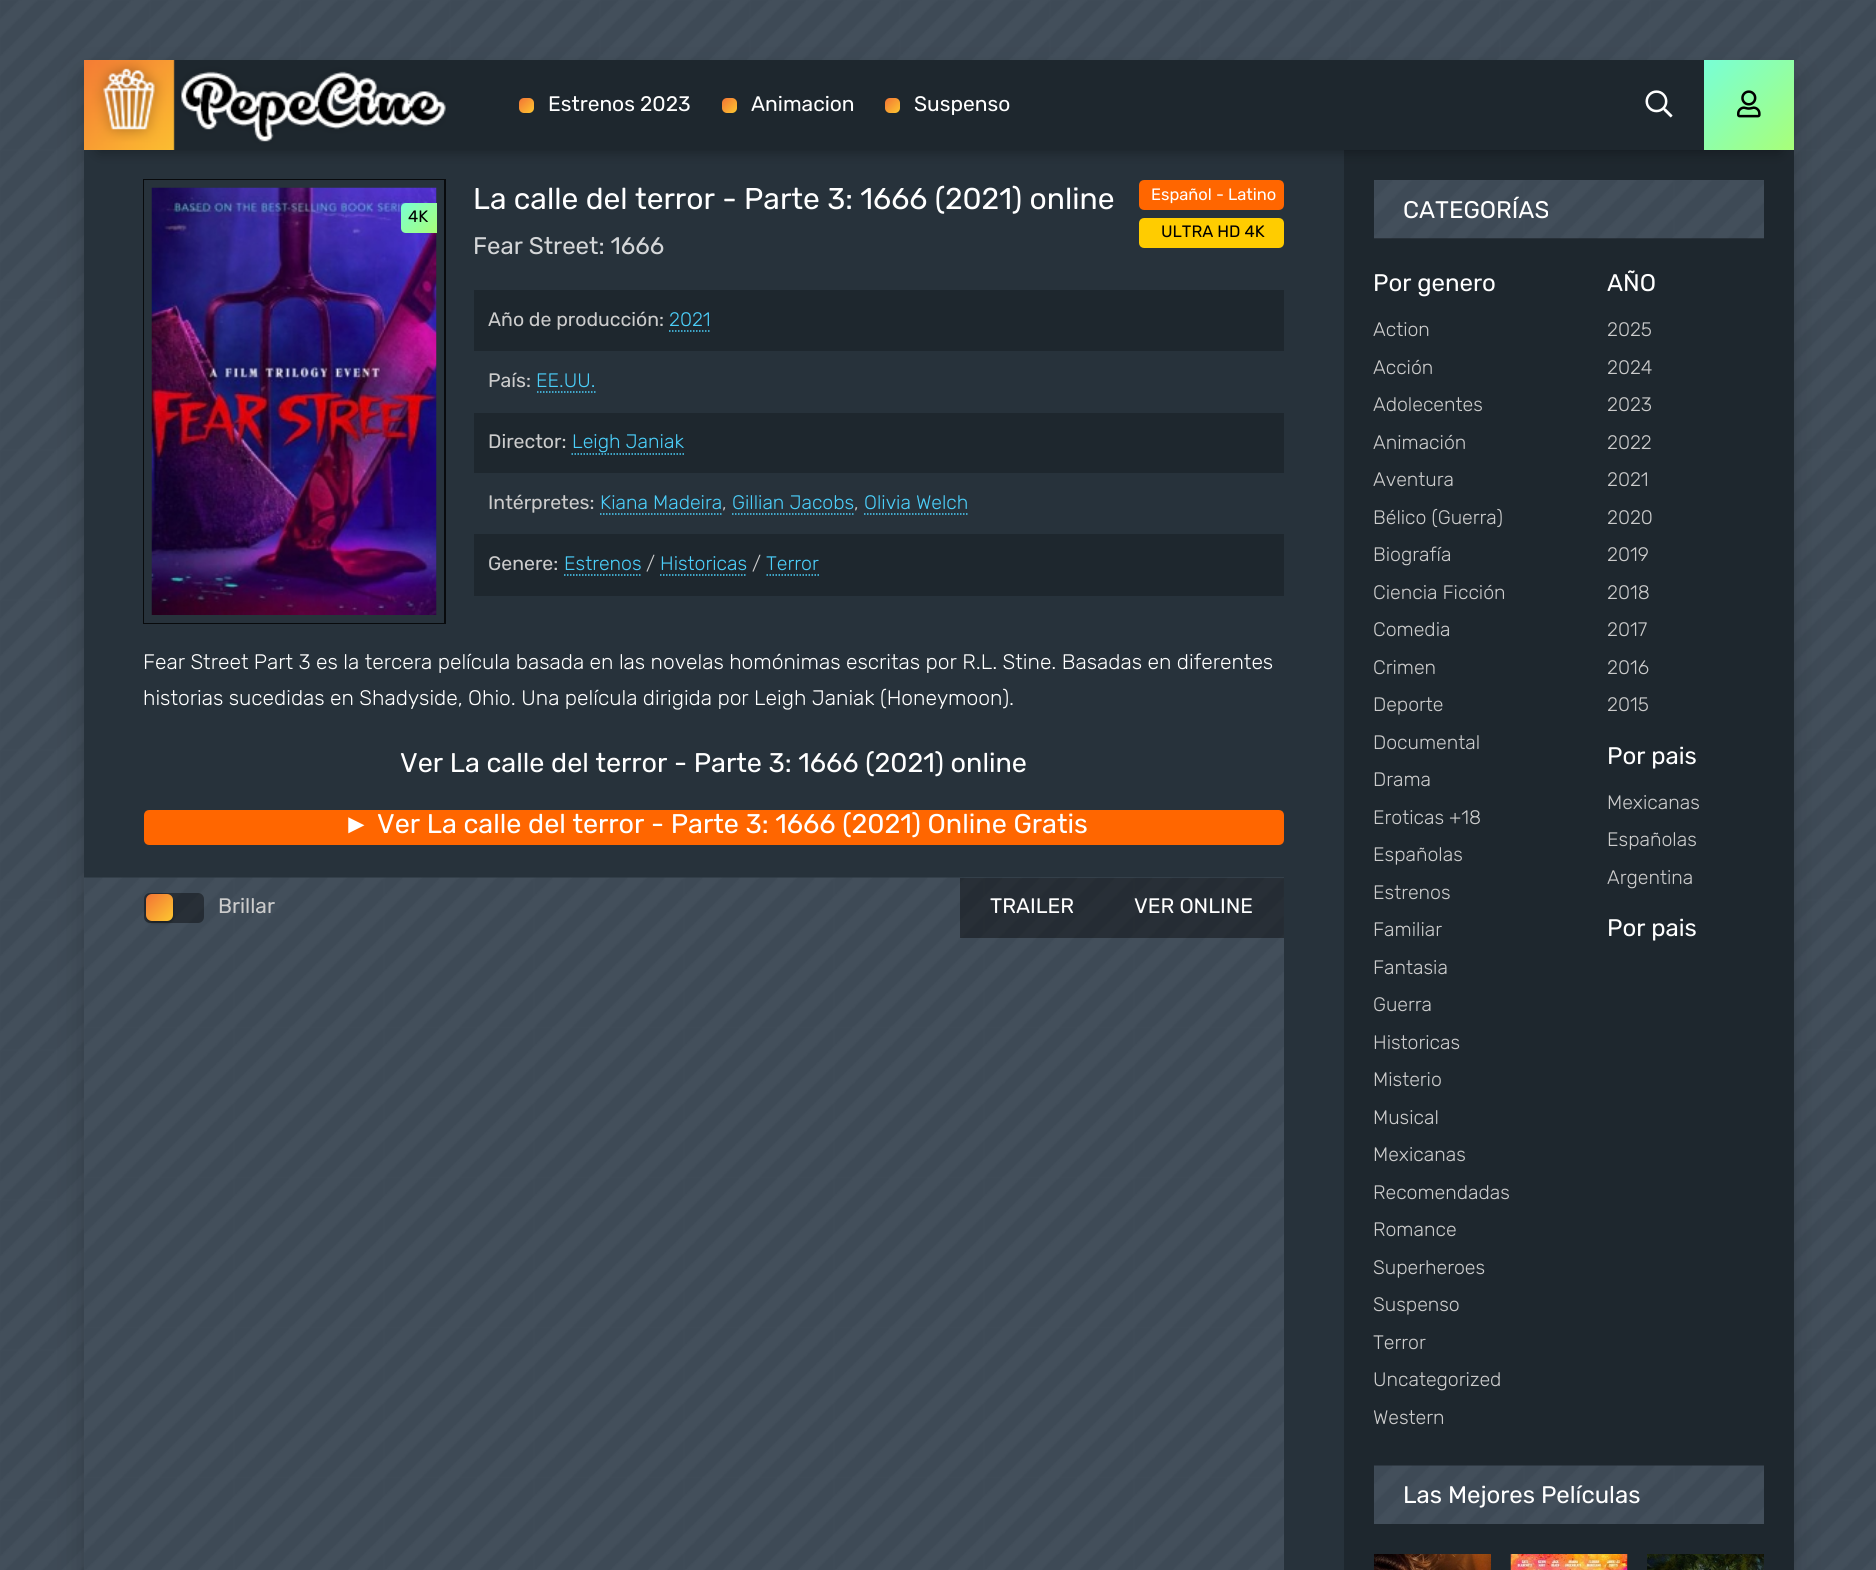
#include <cairo/cairo.h>
#include <math.h>
#include <stddef.h>

static cairo_t *cr;

static void use_color(int r, int g, int b) {
  cairo_set_source_rgb(cr, r / 255.0, g / 255.0, b / 255.0);
}

static void text(double x, double y, const char *s, const char *family, double size, int italic, int bold, int r, int g, int b) {
  cairo_select_font_face(cr, family, italic ? CAIRO_FONT_SLANT_ITALIC : CAIRO_FONT_SLANT_NORMAL,
    bold ? CAIRO_FONT_WEIGHT_BOLD : CAIRO_FONT_WEIGHT_NORMAL);
  cairo_set_font_size(cr, size);
  use_color(r, g, b);
  cairo_move_to(cr, x, y);
  cairo_show_text(cr, s);
}

static void box(double x, double y, double w, double h, int r, int g, int b) {
  use_color(r, g, b);
  cairo_rectangle(cr, x, y, w, h);
  cairo_fill(cr);
}

static void round_rect(double x, double y, double w, double h, double r) {
  cairo_new_sub_path(cr);
  cairo_arc(cr, x + w - r, y + h - r, r, 0, M_PI / 2);
  cairo_arc(cr, x + r, y + h - r, r, M_PI / 2, M_PI);
  cairo_arc(cr, x + r, y + r, r, M_PI, 1.5 * M_PI);
  cairo_arc(cr, x + w - r, y + r, r, 1.5 * M_PI, 2 * M_PI);
  cairo_close_path(cr);
}

static void shadow(double x, double y, double w, double h, double r, double blur, double alpha) {
  cairo_push_group_with_content(cr, CAIRO_CONTENT_ALPHA);
  cairo_set_operator(cr, CAIRO_OPERATOR_SOURCE);
  for (int i = 15; i >= -15 && fmin(w, h) + blur * i / 3 > 0; i -= 2) {
    double e = blur * i / 6;
    cairo_set_source_rgba(cr, 0, 0, 0, alpha * erfc((i - 1) / 8.5) / 2);
    round_rect(x - e, y - e, w + 2 * e, h + 2 * e, fmax(0, fmin(r + e + blur * .6, fmin(w, h) / 2 + e)));
    cairo_fill(cr);
  }
  cairo_pattern_t *soft = cairo_pop_group(cr);
  cairo_mask(cr, soft);
  cairo_pattern_destroy(soft);
}

static void picture(const char *path, double x, double y, double w, double h) {
  cairo_surface_t *image = cairo_image_surface_create_from_png(path);
  cairo_save(cr);
  cairo_set_source_surface(cr, image, x, y);
  cairo_rectangle(cr, x, y, w, h);
  cairo_fill(cr);
  cairo_restore(cr);
  cairo_surface_destroy(image);
}

static void draw(void) {
  cairo_pattern_t *gradient;
  use_color(255, 255, 255);
  cairo_paint(cr);
  picture("img_01.png", 0, 0, 1876, 1570);
  use_color(0, 0, 0);
  shadow(84, 75, 1710, 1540, 0, 15, 0.2);
  box(84, 150, 1260, 1420, 39, 50, 59);
  box(1344, 150, 450, 1420, 30, 39, 46);
  use_color(0, 0, 0);
  shadow(99, 90, 1680, 60, 0, 7.5, 0.4);
  box(173, 60, 1531, 90, 30, 39, 46);
  picture("img_02.png", 84, 60, 362, 90);
  gradient = cairo_pattern_create_linear(519, 98, 534, 113);
  cairo_pattern_add_color_stop_rgba(gradient, 0, 0.953, 0.451, 0.208, 1);
  cairo_pattern_add_color_stop_rgba(gradient, 1, 0.992, 0.784, 0.188, 1);
  cairo_set_source(cr, gradient);
  cairo_pattern_destroy(gradient);
  round_rect(519, 98, 15, 15, 5);
  cairo_fill(cr);
  gradient = cairo_pattern_create_linear(722, 98, 737, 113);
  cairo_pattern_add_color_stop_rgba(gradient, 0, 0.953, 0.451, 0.208, 1);
  cairo_pattern_add_color_stop_rgba(gradient, 1, 0.992, 0.784, 0.188, 1);
  cairo_set_source(cr, gradient);
  cairo_pattern_destroy(gradient);
  round_rect(722, 98, 15, 15, 5);
  cairo_fill(cr);
  gradient = cairo_pattern_create_linear(885, 98, 900, 113);
  cairo_pattern_add_color_stop_rgba(gradient, 0, 0.953, 0.451, 0.208, 1);
  cairo_pattern_add_color_stop_rgba(gradient, 1, 0.992, 0.784, 0.188, 1);
  cairo_set_source(cr, gradient);
  cairo_pattern_destroy(gradient);
  round_rect(885, 98, 15, 15, 5);
  cairo_fill(cr);
  picture("img_03.png", 1645, 90, 28, 28);
  gradient = cairo_pattern_create_linear(1704, 60, 1794, 150);
  cairo_pattern_add_color_stop_rgba(gradient, 0, 0.471, 1, 0.839, 1);
  cairo_pattern_add_color_stop_rgba(gradient, 1, 0.659, 1, 0.471, 1);
  cairo_set_source(cr, gradient);
  cairo_pattern_destroy(gradient);
  cairo_rectangle(cr, 1704, 60, 90, 90);
  cairo_fill(cr);
  picture("img_04.png", 1737, 90, 24, 28);
  use_color(255, 102, 0);
  round_rect(1140.5, 181.5, 142, 27, 3.5);
  cairo_fill_preserve(cr);
  cairo_set_line_width(cr, 3);
  cairo_stroke(cr);
  use_color(255, 204, 0);
  round_rect(1140.5, 219.5, 142, 27, 3.5);
  cairo_fill_preserve(cr);
  cairo_stroke(cr);
  box(474, 290, 810, 61, 30, 39, 46);
  cairo_new_path(cr);
  cairo_move_to(cr, 669, 331);
  cairo_line_to(cr, 711, 331);
  use_color(75, 207, 250);
  cairo_set_line_width(cr, 1.5);
  cairo_set_dash(cr, (double[]){1.5, 1.5}, 2, 0);
  cairo_stroke(cr);
  cairo_new_path(cr);
  cairo_move_to(cr, 537, 392);
  cairo_line_to(cr, 595.5, 392);
  cairo_stroke(cr);
  box(474, 413, 810, 60, 30, 39, 46);
  cairo_new_path(cr);
  cairo_move_to(cr, 571.5, 454);
  cairo_line_to(cr, 684, 454);
  use_color(75, 207, 250);
  cairo_stroke(cr);
  cairo_new_path(cr);
  cairo_move_to(cr, 600, 514);
  cairo_line_to(cr, 721.5, 514);
  cairo_stroke(cr);
  cairo_new_path(cr);
  cairo_move_to(cr, 732, 514);
  cairo_line_to(cr, 853.5, 514);
  cairo_stroke(cr);
  cairo_new_path(cr);
  cairo_move_to(cr, 864, 514);
  cairo_line_to(cr, 967.5, 514);
  cairo_stroke(cr);
  box(474, 534, 810, 62, 30, 39, 46);
  cairo_new_path(cr);
  cairo_move_to(cr, 564, 575);
  cairo_line_to(cr, 640.5, 575);
  use_color(75, 207, 250);
  cairo_stroke(cr);
  cairo_new_path(cr);
  cairo_move_to(cr, 660, 575);
  cairo_line_to(cr, 747, 575);
  cairo_stroke(cr);
  cairo_new_path(cr);
  cairo_move_to(cr, 766.5, 575);
  cairo_line_to(cr, 819, 575);
  cairo_stroke(cr);
  cairo_rectangle(cr, 144, 180, 301, 443);
  use_color(8, 10, 12);
  cairo_set_line_width(cr, 2);
  cairo_set_dash(cr, NULL, 0, 0);
  cairo_stroke(cr);
  cairo_rectangle(cr, 148, 184, 292, 435);
  use_color(39, 50, 59);
  cairo_set_line_width(cr, 8);
  cairo_stroke(cr);
  picture("img_05.png", 151, 187, 286, 428);
  gradient = cairo_pattern_create_linear(402, 201, 435, 234);
  cairo_pattern_add_color_stop_rgba(gradient, 0, 0.471, 1, 0.839, 1);
  cairo_pattern_add_color_stop_rgba(gradient, 1, 0.659, 1, 0.471, 1);
  cairo_set_source(cr, gradient);
  cairo_pattern_destroy(gradient);
  cairo_new_path(cr);
  cairo_move_to(cr, 406, 203);
  cairo_line_to(cr, 437, 203);
  cairo_line_to(cr, 437, 233);
  cairo_line_to(cr, 406, 233);
  cairo_curve_to(cr, 403, 233, 401, 231, 401, 228);
  cairo_line_to(cr, 401, 208);
  cairo_curve_to(cr, 401, 205, 403, 203, 406, 203);
  cairo_close_path(cr);
  cairo_fill(cr);
  use_color(255, 102, 0);
  round_rect(145.5, 811.5, 1137, 32, 3.5);
  cairo_fill_preserve(cr);
  cairo_set_line_width(cr, 3);
  cairo_stroke(cr);
  picture("img_06.png", 84, 877, 1200, 693);
  cairo_set_source_rgba(cr, 0, 0, 0, 0.4);
  round_rect(144, 893, 60, 30, 6);
  cairo_fill(cr);
  use_color(0, 0, 0);
  shadow(146, 896, 27, 27, 6, 1.5, 0.3);
  gradient = cairo_pattern_create_linear(146, 894, 173, 921);
  cairo_pattern_add_color_stop_rgba(gradient, 0, 0.953, 0.451, 0.208, 1);
  cairo_pattern_add_color_stop_rgba(gradient, 1, 0.992, 0.784, 0.188, 1);
  cairo_set_source(cr, gradient);
  cairo_pattern_destroy(gradient);
  round_rect(146, 894, 27, 27, 6);
  cairo_fill(cr);
  cairo_set_source_rgba(cr, 0, 0, 0, 0.4);
  cairo_rectangle(cr, 960, 878, 144, 60);
  cairo_fill(cr);
  cairo_rectangle(cr, 1104, 878, 180, 60);
  cairo_fill(cr);
  box(1374, 238, 390, 1, 18, 23, 27);
  picture("img_07.png", 1374, 180, 390, 59);
  picture("img_08.png", 1374, 1465, 390, 59);
  picture("img_09.png", 1374, 1554, 117, 16);
  picture("img_10.png", 1510, 1554, 118, 16);
  picture("img_11.png", 1647, 1554, 117, 16);
  text(548, 111, "Estrenos 2023", "Rubik", 21, 0, 0, 255, 255, 255);
  text(751, 111, "Animacion", "Rubik", 21, 0, 0, 255, 255, 255);
  text(914, 111, "Suspenso", "Rubik", 21, 0, 0, 255, 255, 255);
  text(473, 209, "La calle del terror - Parte 3: 1666 (2021) online", "Rubik", 30, 0, 0, 255, 255, 255);
  text(1151, 200, "Español - Latino", "Rubik", 16.5, 0, 0, 255, 255, 255);
  text(1161, 237, "ULTRA HD 4K", "Rubik", 16.5, 0, 0, 0, 0, 0);
  text(473, 254, "Fear Street: 1666", "Rubik", 24, 0, 0, 212, 214, 216);
  text(488, 326, "Año de producción:", "Rubik", 19.5, 0, 0, 204, 204, 204);
  text(669, 326, "2021", "Rubik Light", 19.5, 0, 0, 75, 207, 250);
  text(488, 387, "País:", "Rubik", 19.5, 0, 0, 204, 204, 204);
  text(536, 387, "EE.UU.", "Rubik Light", 19.5, 0, 0, 75, 207, 250);
  text(488, 448, "Director:", "Rubik", 19.5, 0, 0, 204, 204, 204);
  text(572, 448, "Leigh Janiak", "Rubik Light", 19.5, 0, 0, 75, 207, 250);
  text(488, 509, "Intérpretes:", "Rubik", 19.5, 0, 0, 204, 204, 204);
  text(600, 509, "Kiana Madeira", "Rubik Light", 19.5, 0, 0, 75, 207, 250);
  text(722, 509, ",", "Rubik Light", 19.5, 0, 0, 204, 204, 204);
  text(732, 509, "Gillian Jacobs", "Rubik Light", 19.5, 0, 0, 75, 207, 250);
  text(854, 509, ",", "Rubik Light", 19.5, 0, 0, 204, 204, 204);
  text(864, 509, "Olivia Welch", "Rubik Light", 19.5, 0, 0, 75, 207, 250);
  text(488, 570, "Genere:", "Rubik", 19.5, 0, 0, 204, 204, 204);
  text(564, 570, "Estrenos", "Rubik Light", 19.5, 0, 0, 75, 207, 250);
  text(646, 570, "/", "Rubik Light", 19.5, 0, 0, 204, 204, 204);
  text(660, 570, "Historicas", "Rubik Light", 19.5, 0, 0, 75, 207, 250);
  text(752, 570, "/", "Rubik Light", 19.5, 0, 0, 204, 204, 204);
  text(766, 570, "Terror", "Rubik Light", 19.5, 0, 0, 75, 207, 250);
  text(143, 669, "Fear Street Part 3 es la tercera película basada en las novelas homónimas escritas por R.L. Stine. Basadas en diferentes", "Rubik Light", 21, 0, 0, 255, 255, 255);
  text(143, 705, "historias sucedidas en Shadyside, Ohio. Una película dirigida por Leigh Janiak (Honeymoon).", "Rubik Light", 21, 0, 0, 255, 255, 255);
  text(408, 222, "4K", "Rubik", 16.5, 0, 0, 0, 0, 0);
  text(400, 772, "Ver La calle del terror - Parte 3: 1666 (2021) online", "Rubik", 27, 0, 0, 255, 255, 255);
  text(343, 833, "►", "Liberation Sans", 27, 0, 0, 255, 255, 255);
  text(377, 833, "Ver La calle del terror - Parte 3: 1666 (2021) Online Gratis", "Rubik", 27, 0, 0, 255, 255, 255);
  text(218, 913, "Brillar", "Rubik", 21, 0, 0, 204, 204, 204);
  text(990, 913, "TRAILER", "Rubik", 21, 0, 0, 255, 255, 255);
  text(1134, 913, "VER ONLINE", "Rubik", 21, 0, 0, 255, 255, 255);
  text(1403, 218, "CATEGORÍAS", "Rubik", 24, 0, 0, 255, 255, 255);
  text(1373, 291, "Por genero", "Rubik", 24, 0, 0, 255, 255, 255);
  text(1373, 336, "Action", "Rubik Light", 19.5, 0, 0, 204, 204, 204);
  text(1373, 374, "Acción", "Rubik Light", 19.5, 0, 0, 204, 204, 204);
  text(1373, 411, "Adolecentes", "Rubik Light", 19.5, 0, 0, 204, 204, 204);
  text(1373, 449, "Animación", "Rubik Light", 19.5, 0, 0, 204, 204, 204);
  text(1373, 486, "Aventura", "Rubik Light", 19.5, 0, 0, 204, 204, 204);
  text(1373, 524, "Bélico (Guerra)", "Rubik Light", 19.5, 0, 0, 204, 204, 204);
  text(1373, 561, "Biografía", "Rubik Light", 19.5, 0, 0, 204, 204, 204);
  text(1373, 599, "Ciencia Ficción", "Rubik Light", 19.5, 0, 0, 204, 204, 204);
  text(1373, 636, "Comedia", "Rubik Light", 19.5, 0, 0, 204, 204, 204);
  text(1373, 674, "Crimen", "Rubik Light", 19.5, 0, 0, 204, 204, 204);
  text(1373, 711, "Deporte", "Rubik Light", 19.5, 0, 0, 204, 204, 204);
  text(1373, 749, "Documental", "Rubik Light", 19.5, 0, 0, 204, 204, 204);
  text(1373, 786, "Drama", "Rubik Light", 19.5, 0, 0, 204, 204, 204);
  text(1373, 824, "Eroticas +18", "Rubik Light", 19.5, 0, 0, 204, 204, 204);
  text(1373, 861, "Españolas", "Rubik Light", 19.5, 0, 0, 204, 204, 204);
  text(1373, 899, "Estrenos", "Rubik Light", 19.5, 0, 0, 204, 204, 204);
  text(1373, 936, "Familiar", "Rubik Light", 19.5, 0, 0, 204, 204, 204);
  text(1373, 974, "Fantasia", "Rubik Light", 19.5, 0, 0, 204, 204, 204);
  text(1373, 1011, "Guerra", "Rubik Light", 19.5, 0, 0, 204, 204, 204);
  text(1373, 1049, "Historicas", "Rubik Light", 19.5, 0, 0, 204, 204, 204);
  text(1373, 1086, "Misterio", "Rubik Light", 19.5, 0, 0, 204, 204, 204);
  text(1373, 1124, "Musical", "Rubik Light", 19.5, 0, 0, 204, 204, 204);
  text(1373, 1161, "Mexicanas", "Rubik Light", 19.5, 0, 0, 204, 204, 204);
  text(1373, 1199, "Recomendadas", "Rubik Light", 19.5, 0, 0, 204, 204, 204);
  text(1373, 1236, "Romance", "Rubik Light", 19.5, 0, 0, 204, 204, 204);
  text(1373, 1274, "Superheroes", "Rubik Light", 19.5, 0, 0, 204, 204, 204);
  text(1373, 1311, "Suspenso", "Rubik Light", 19.5, 0, 0, 204, 204, 204);
  text(1373, 1349, "Terror", "Rubik Light", 19.5, 0, 0, 204, 204, 204);
  text(1373, 1386, "Uncategorized", "Rubik Light", 19.5, 0, 0, 204, 204, 204);
  text(1373, 1424, "Western", "Rubik Light", 19.5, 0, 0, 204, 204, 204);
  text(1607, 291, "AÑO", "Rubik", 24, 0, 0, 255, 255, 255);
  text(1607, 336, "2025", "Rubik Light", 19.5, 0, 0, 204, 204, 204);
  text(1607, 374, "2024", "Rubik Light", 19.5, 0, 0, 204, 204, 204);
  text(1607, 411, "2023", "Rubik Light", 19.5, 0, 0, 204, 204, 204);
  text(1607, 449, "2022", "Rubik Light", 19.5, 0, 0, 204, 204, 204);
  text(1607, 486, "2021", "Rubik Light", 19.5, 0, 0, 204, 204, 204);
  text(1607, 524, "2020", "Rubik Light", 19.5, 0, 0, 204, 204, 204);
  text(1607, 561, "2019", "Rubik Light", 19.5, 0, 0, 204, 204, 204);
  text(1607, 599, "2018", "Rubik Light", 19.5, 0, 0, 204, 204, 204);
  text(1607, 636, "2017", "Rubik Light", 19.5, 0, 0, 204, 204, 204);
  text(1607, 674, "2016", "Rubik Light", 19.5, 0, 0, 204, 204, 204);
  text(1607, 711, "2015", "Rubik Light", 19.5, 0, 0, 204, 204, 204);
  text(1607, 764, "Por pais", "Rubik", 24, 0, 0, 255, 255, 255);
  text(1607, 809, "Mexicanas", "Rubik Light", 19.5, 0, 0, 204, 204, 204);
  text(1607, 846, "Españolas", "Rubik Light", 19.5, 0, 0, 204, 204, 204);
  text(1607, 884, "Argentina", "Rubik Light", 19.5, 0, 0, 204, 204, 204);
  text(1607, 936, "Por pais", "Rubik", 24, 0, 0, 255, 255, 255);
  text(1403, 1503, "Las Mejores Películas", "Rubik", 24, 0, 0, 255, 255, 255);
}

int main(void) {
  cairo_surface_t *surface = cairo_image_surface_create(CAIRO_FORMAT_RGB24, 1876, 1570);
  cr = cairo_create(surface);
  cairo_font_options_t *options = cairo_font_options_create();
  cairo_font_options_set_hint_metrics(options, CAIRO_HINT_METRICS_OFF);
  cairo_font_options_set_hint_style(options, CAIRO_HINT_STYLE_NONE);
  cairo_set_font_options(cr, options);
  cairo_set_miter_limit(cr, 4);
  draw();
  cairo_surface_write_to_png(surface, "out.png");
  cairo_font_options_destroy(options);
  cairo_destroy(cr);
  cairo_surface_destroy(surface);
  return 0;
}
